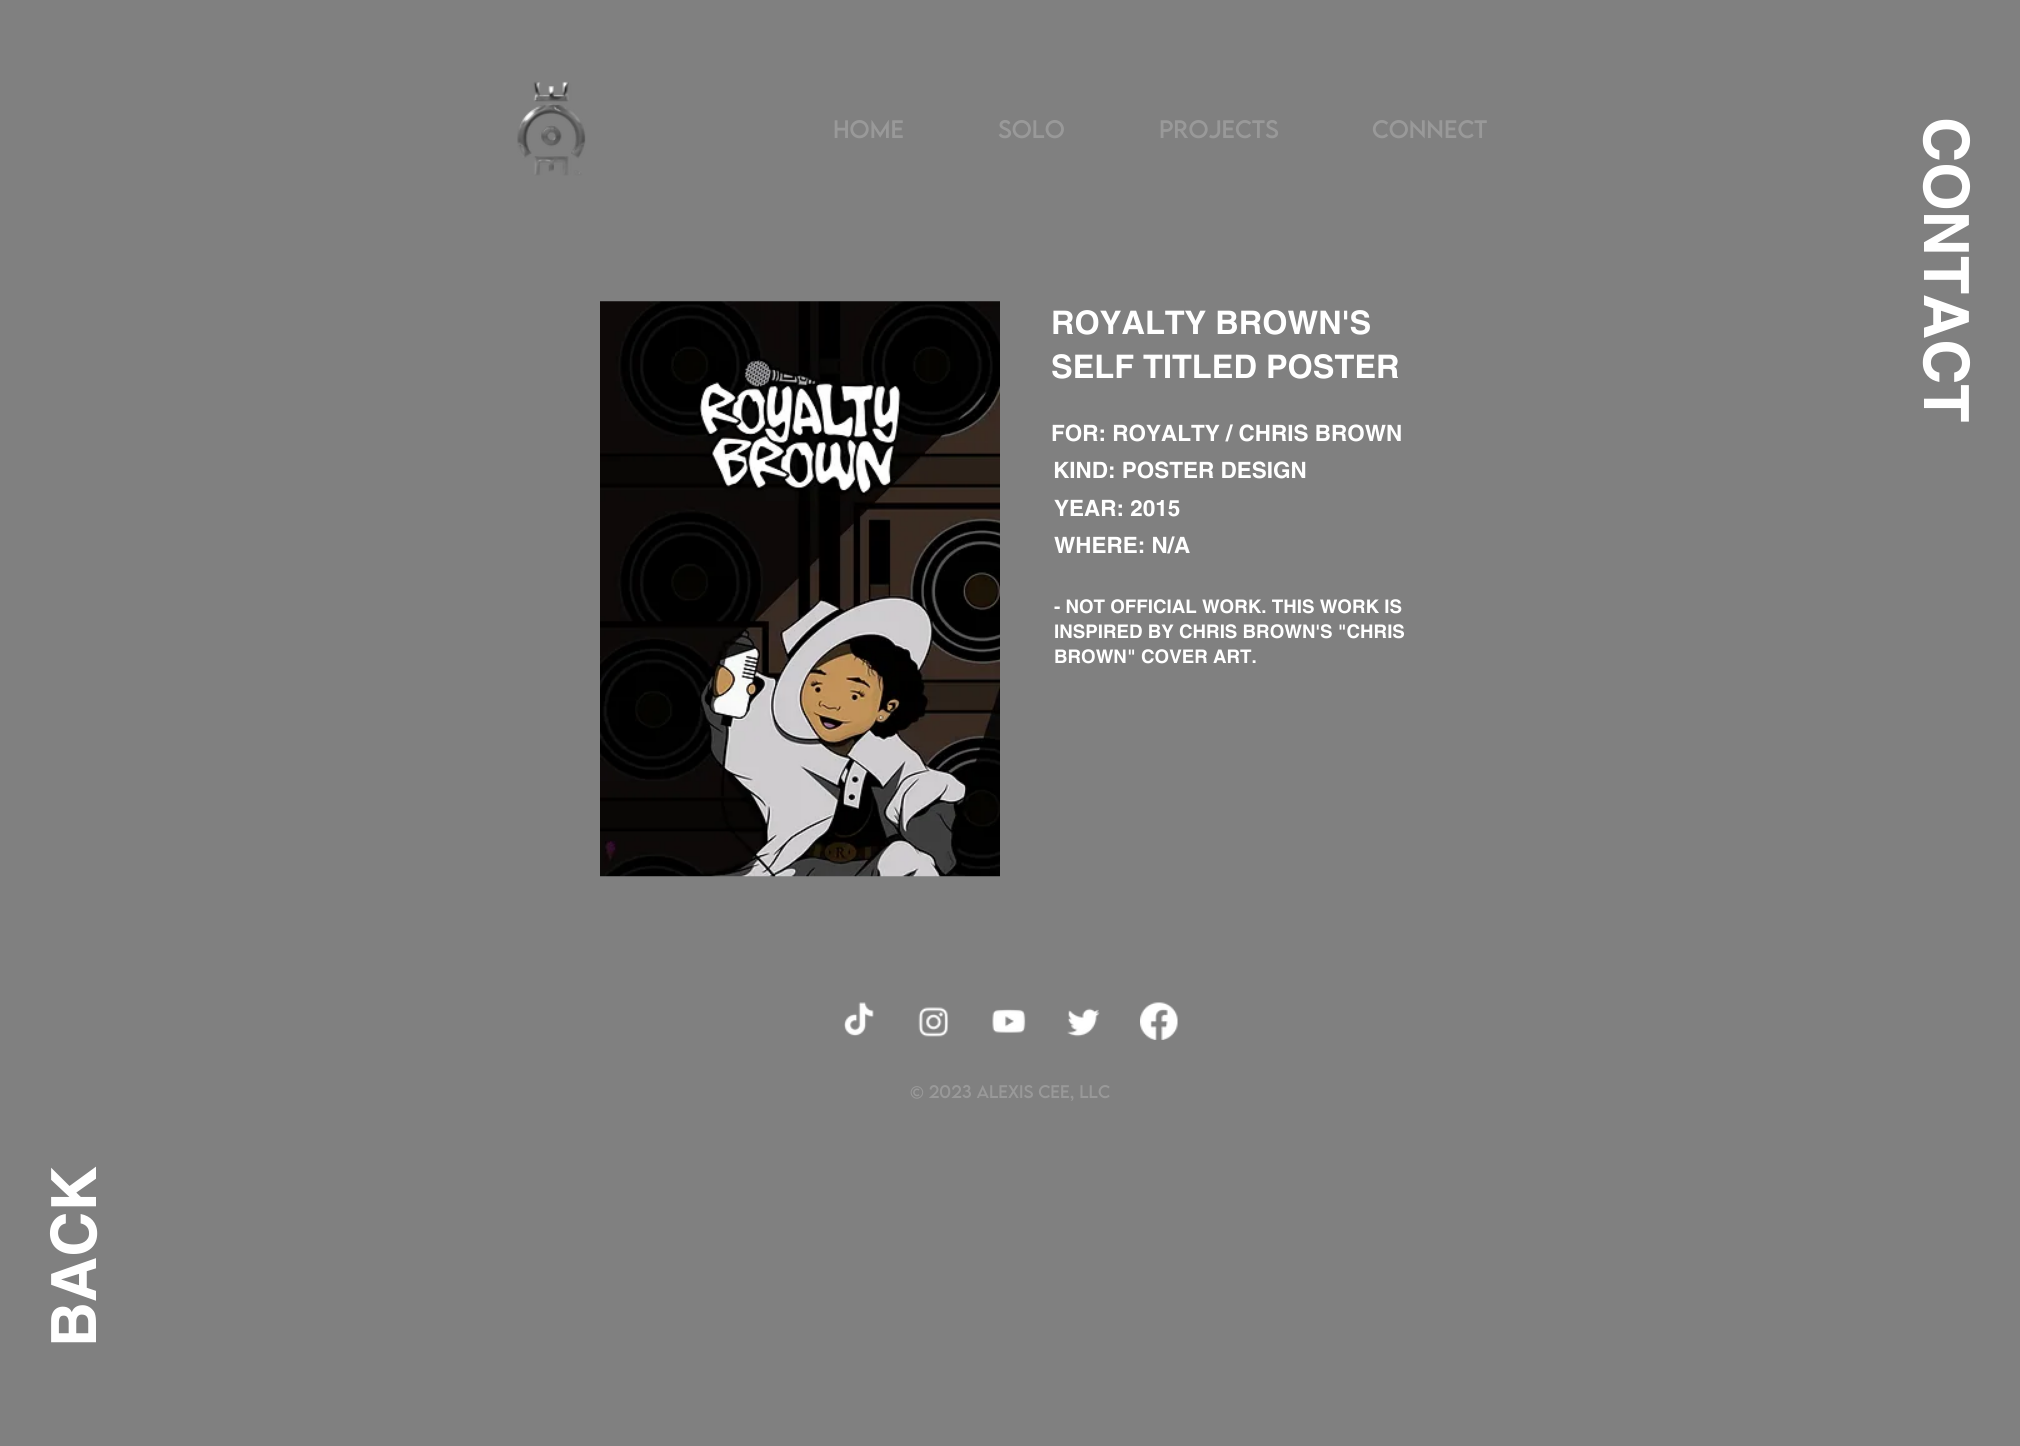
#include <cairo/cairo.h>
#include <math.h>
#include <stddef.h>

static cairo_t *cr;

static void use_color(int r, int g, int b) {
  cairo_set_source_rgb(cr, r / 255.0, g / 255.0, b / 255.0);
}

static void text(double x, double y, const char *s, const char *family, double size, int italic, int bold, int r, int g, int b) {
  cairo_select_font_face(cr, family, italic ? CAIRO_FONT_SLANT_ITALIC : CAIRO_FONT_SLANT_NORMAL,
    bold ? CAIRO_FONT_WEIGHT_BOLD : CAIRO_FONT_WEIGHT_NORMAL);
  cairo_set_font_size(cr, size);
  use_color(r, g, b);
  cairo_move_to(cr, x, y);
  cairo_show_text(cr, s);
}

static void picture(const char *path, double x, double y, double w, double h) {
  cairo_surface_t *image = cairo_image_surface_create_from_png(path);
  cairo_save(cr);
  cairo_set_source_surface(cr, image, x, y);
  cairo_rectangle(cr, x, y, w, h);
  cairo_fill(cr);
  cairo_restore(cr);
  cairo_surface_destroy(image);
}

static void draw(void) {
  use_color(128, 128, 128);
  cairo_paint(cr);
  picture("img_01.png", 600, 301, 400, 576);
  picture("img_02.png", 517, 81, 69, 95);
  picture("img_03.png", 844, 1002, 30, 34);
  picture("img_04.png", 918, 1007, 31, 30);
  picture("img_05.png", 992, 1009, 34, 24);
  picture("img_06.png", 1067, 1008, 33, 29);
  picture("img_07.png", 1140, 1002, 38, 38);
  cairo_save(cr);
  cairo_translate(cr, 1924, 117);
  cairo_rotate(cr, 90 * M_PI / 180);
  text(0, 0, "CONTACT", "helvetica", 62.5, 0, 1, 255, 255, 255);
  cairo_restore(cr);
  text(1051, 334, "ROYALTY BROWN'S", "helvetica", 32.5, 0, 1, 255, 255, 255);
  text(1051, 378, "SELF TITLED POSTER", "helvetica", 32.5, 0, 1, 255, 255, 255);
  text(1051, 441, "FOR: ROYALTY / CHRIS BROWN", "helvetica", 22.5, 0, 1, 255, 255, 255);
  text(1053, 478, "KIND: POSTER DESIGN", "helvetica", 22.5, 0, 1, 255, 255, 255);
  text(1054, 516, "YEAR: 2015", "helvetica", 22.5, 0, 1, 255, 255, 255);
  text(1054, 553, "WHERE: N/A", "helvetica", 22.5, 0, 1, 255, 255, 255);
  text(1054, 613, "- NOT OFFICIAL WORK. THIS WORK IS", "helvetica", 18.75, 0, 1, 255, 255, 255);
  text(1054, 638, "INSPIRED BY CHRIS BROWN'S \"CHRIS", "helvetica", 18.75, 0, 1, 255, 255, 255);
  text(1054, 663, "BROWN\" COVER ART.", "helvetica", 18.75, 0, 1, 255, 255, 255);
  cairo_save(cr);
  cairo_translate(cr, 96, 1347);
  cairo_rotate(cr, -90 * M_PI / 180);
  text(0, 0, "BACK", "helvetica", 62.5, 0, 1, 255, 255, 255);
  cairo_restore(cr);
  text(833, 138, "Home", "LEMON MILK", 22.5, 0, 0, 153, 153, 153);
  text(998, 138, "Solo", "LEMON MILK", 22.5, 0, 0, 153, 153, 153);
  text(1159, 138, "Projects", "LEMON MILK", 22.5, 0, 0, 153, 153, 153);
  text(1372, 138, "Connect", "LEMON MILK", 22.5, 0, 0, 153, 153, 153);
  text(910, 1098, "© 2023 ALEXIS CEE, LLC", "LEMON MILK", 16.25, 0, 0, 153, 153, 153);
}

int main(void) {
  cairo_surface_t *surface = cairo_image_surface_create(CAIRO_FORMAT_RGB24, 2020, 1446);
  cr = cairo_create(surface);
  cairo_font_options_t *options = cairo_font_options_create();
  cairo_font_options_set_hint_metrics(options, CAIRO_HINT_METRICS_OFF);
  cairo_font_options_set_hint_style(options, CAIRO_HINT_STYLE_NONE);
  cairo_set_font_options(cr, options);
  cairo_set_miter_limit(cr, 4);
  draw();
  cairo_surface_write_to_png(surface, "out.png");
  cairo_font_options_destroy(options);
  cairo_destroy(cr);
  cairo_surface_destroy(surface);
  return 0;
}
